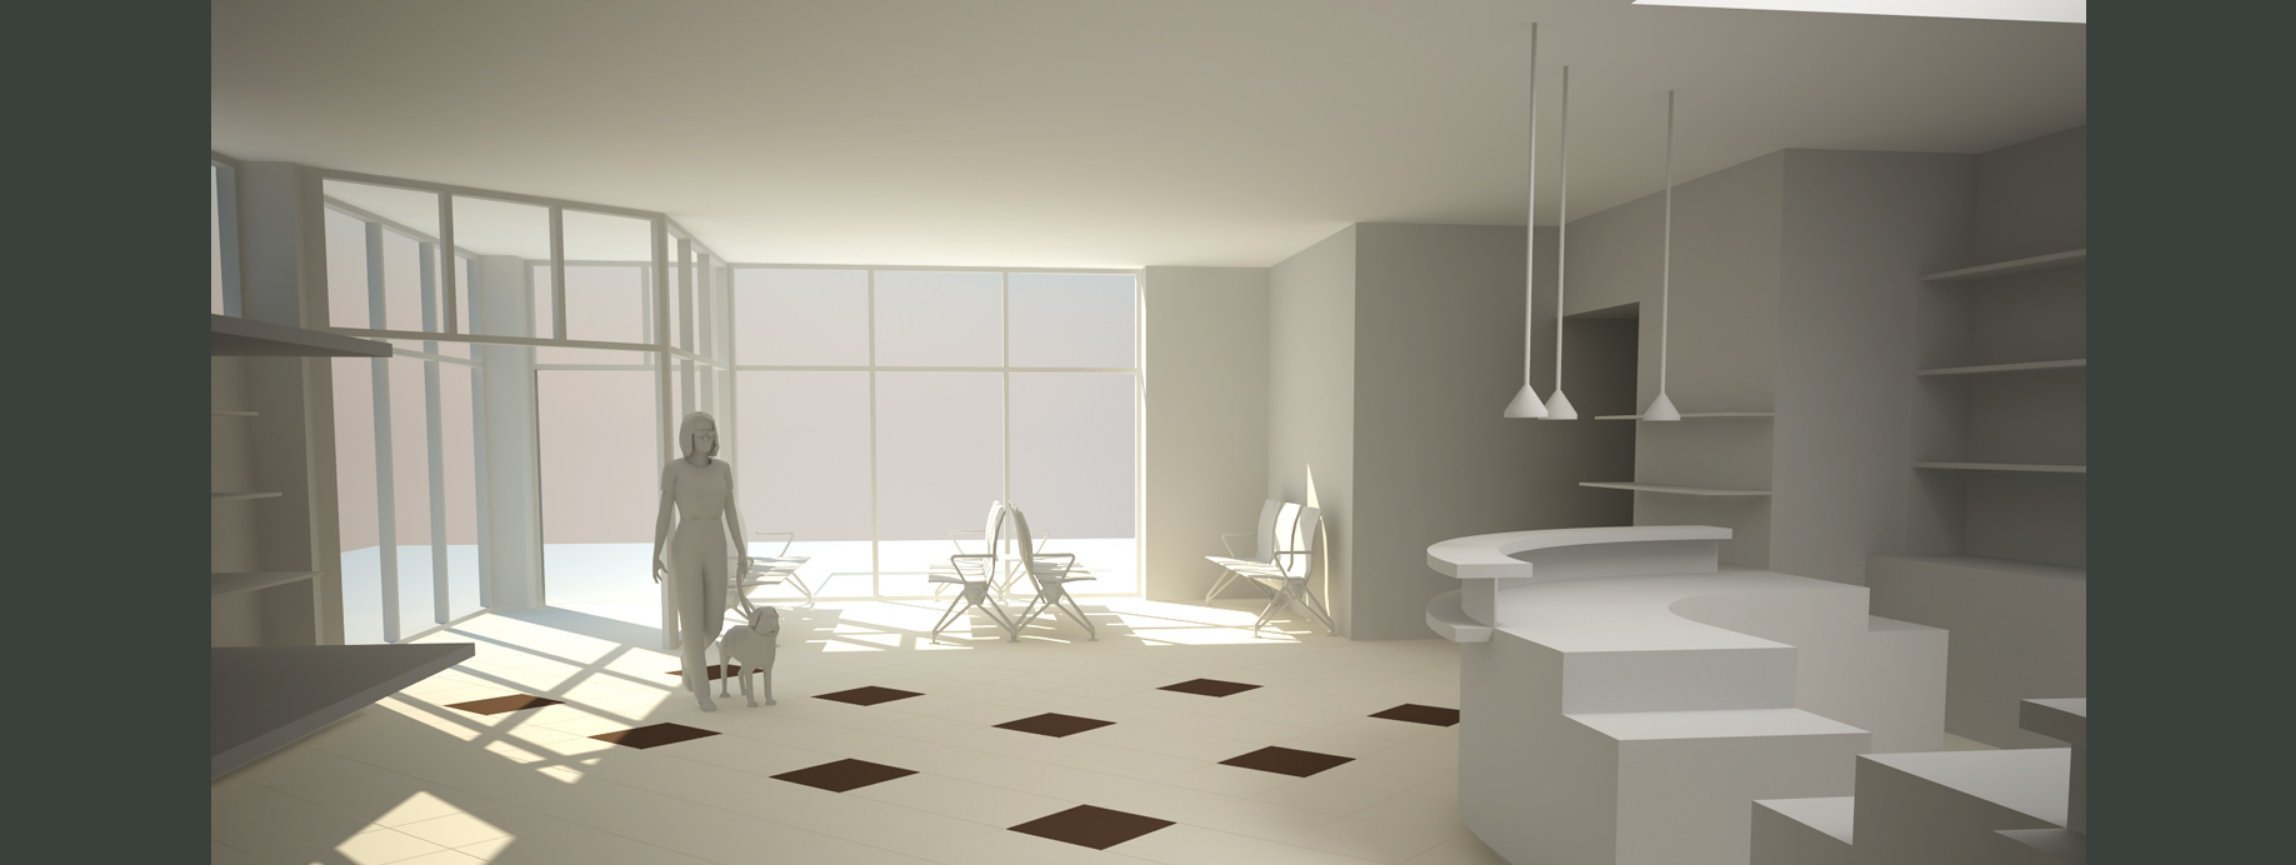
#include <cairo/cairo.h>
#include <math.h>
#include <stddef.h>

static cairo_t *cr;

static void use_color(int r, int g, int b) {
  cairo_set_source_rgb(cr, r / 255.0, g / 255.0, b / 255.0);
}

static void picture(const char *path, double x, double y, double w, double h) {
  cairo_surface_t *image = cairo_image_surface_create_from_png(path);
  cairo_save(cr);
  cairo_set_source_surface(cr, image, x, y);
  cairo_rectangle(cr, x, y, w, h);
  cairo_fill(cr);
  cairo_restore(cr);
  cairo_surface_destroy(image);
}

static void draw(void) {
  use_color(58, 64, 60);
  cairo_paint(cr);
  picture("img_01.png", 211, 0, 1876, 865);
}

int main(void) {
  cairo_surface_t *surface = cairo_image_surface_create(CAIRO_FORMAT_RGB24, 2296, 865);
  cr = cairo_create(surface);
  cairo_font_options_t *options = cairo_font_options_create();
  cairo_font_options_set_hint_metrics(options, CAIRO_HINT_METRICS_OFF);
  cairo_font_options_set_hint_style(options, CAIRO_HINT_STYLE_NONE);
  cairo_set_font_options(cr, options);
  cairo_set_miter_limit(cr, 4);
  draw();
  cairo_surface_write_to_png(surface, "out.png");
  cairo_font_options_destroy(options);
  cairo_destroy(cr);
  cairo_surface_destroy(surface);
  return 0;
}
